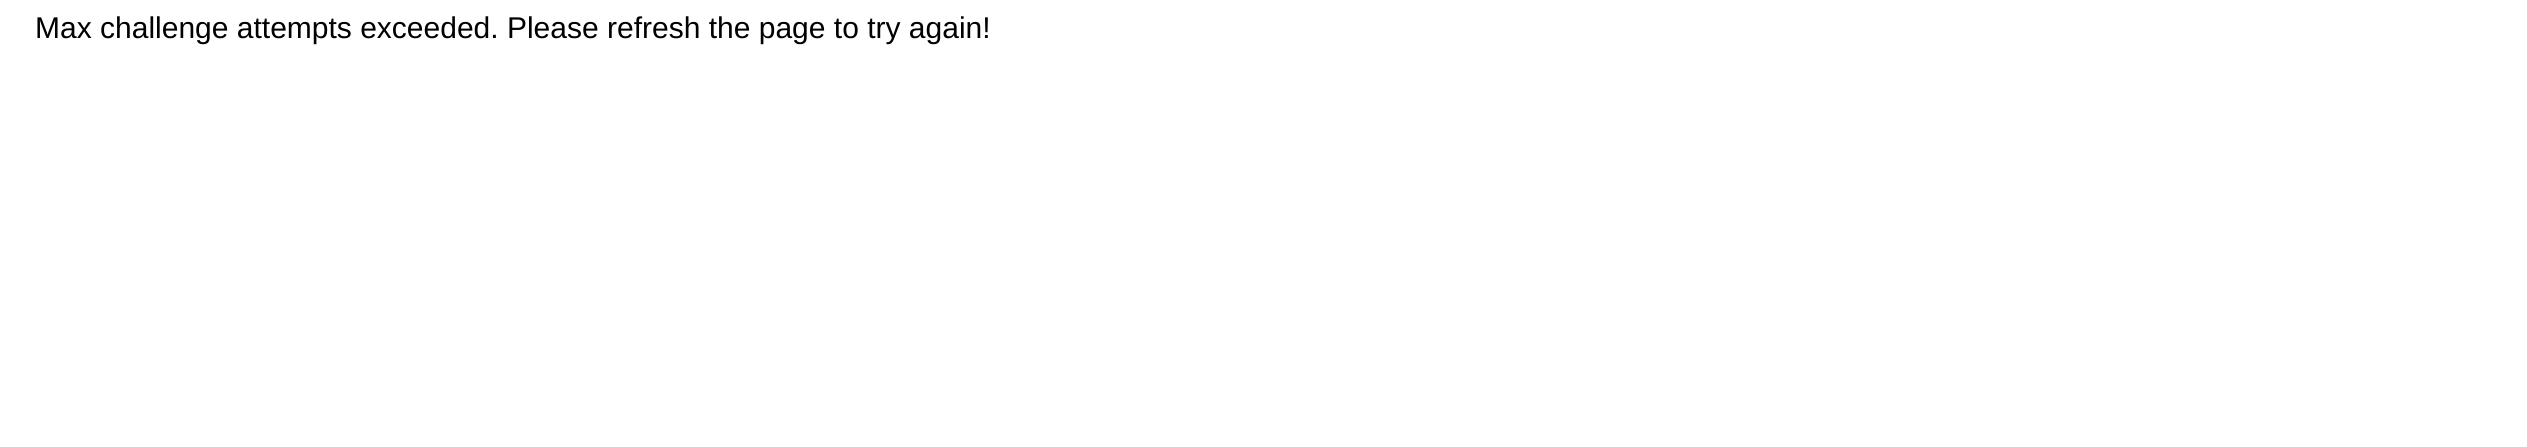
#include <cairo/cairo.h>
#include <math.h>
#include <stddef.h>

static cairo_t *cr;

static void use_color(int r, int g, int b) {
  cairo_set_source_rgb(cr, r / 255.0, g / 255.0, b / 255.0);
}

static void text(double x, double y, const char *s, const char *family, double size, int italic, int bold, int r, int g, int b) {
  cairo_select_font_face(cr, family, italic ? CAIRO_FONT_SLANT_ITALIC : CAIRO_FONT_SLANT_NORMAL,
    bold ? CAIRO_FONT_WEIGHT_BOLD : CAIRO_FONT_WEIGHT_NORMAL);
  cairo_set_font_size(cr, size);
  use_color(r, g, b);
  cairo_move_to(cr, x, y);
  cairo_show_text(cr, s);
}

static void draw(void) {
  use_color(255, 255, 255);
  cairo_paint(cr);
  text(35, 38, "Max challenge attempts exceeded. Please refresh the page to try again!", "Liberation Sans", 30, 0, 0, 0, 0, 0);
}

int main(void) {
  cairo_surface_t *surface = cairo_image_surface_create(CAIRO_FORMAT_RGB24, 2527, 447);
  cr = cairo_create(surface);
  cairo_font_options_t *options = cairo_font_options_create();
  cairo_font_options_set_hint_metrics(options, CAIRO_HINT_METRICS_OFF);
  cairo_font_options_set_hint_style(options, CAIRO_HINT_STYLE_NONE);
  cairo_set_font_options(cr, options);
  cairo_set_miter_limit(cr, 4);
  draw();
  cairo_surface_write_to_png(surface, "out.png");
  cairo_font_options_destroy(options);
  cairo_destroy(cr);
  cairo_surface_destroy(surface);
  return 0;
}
